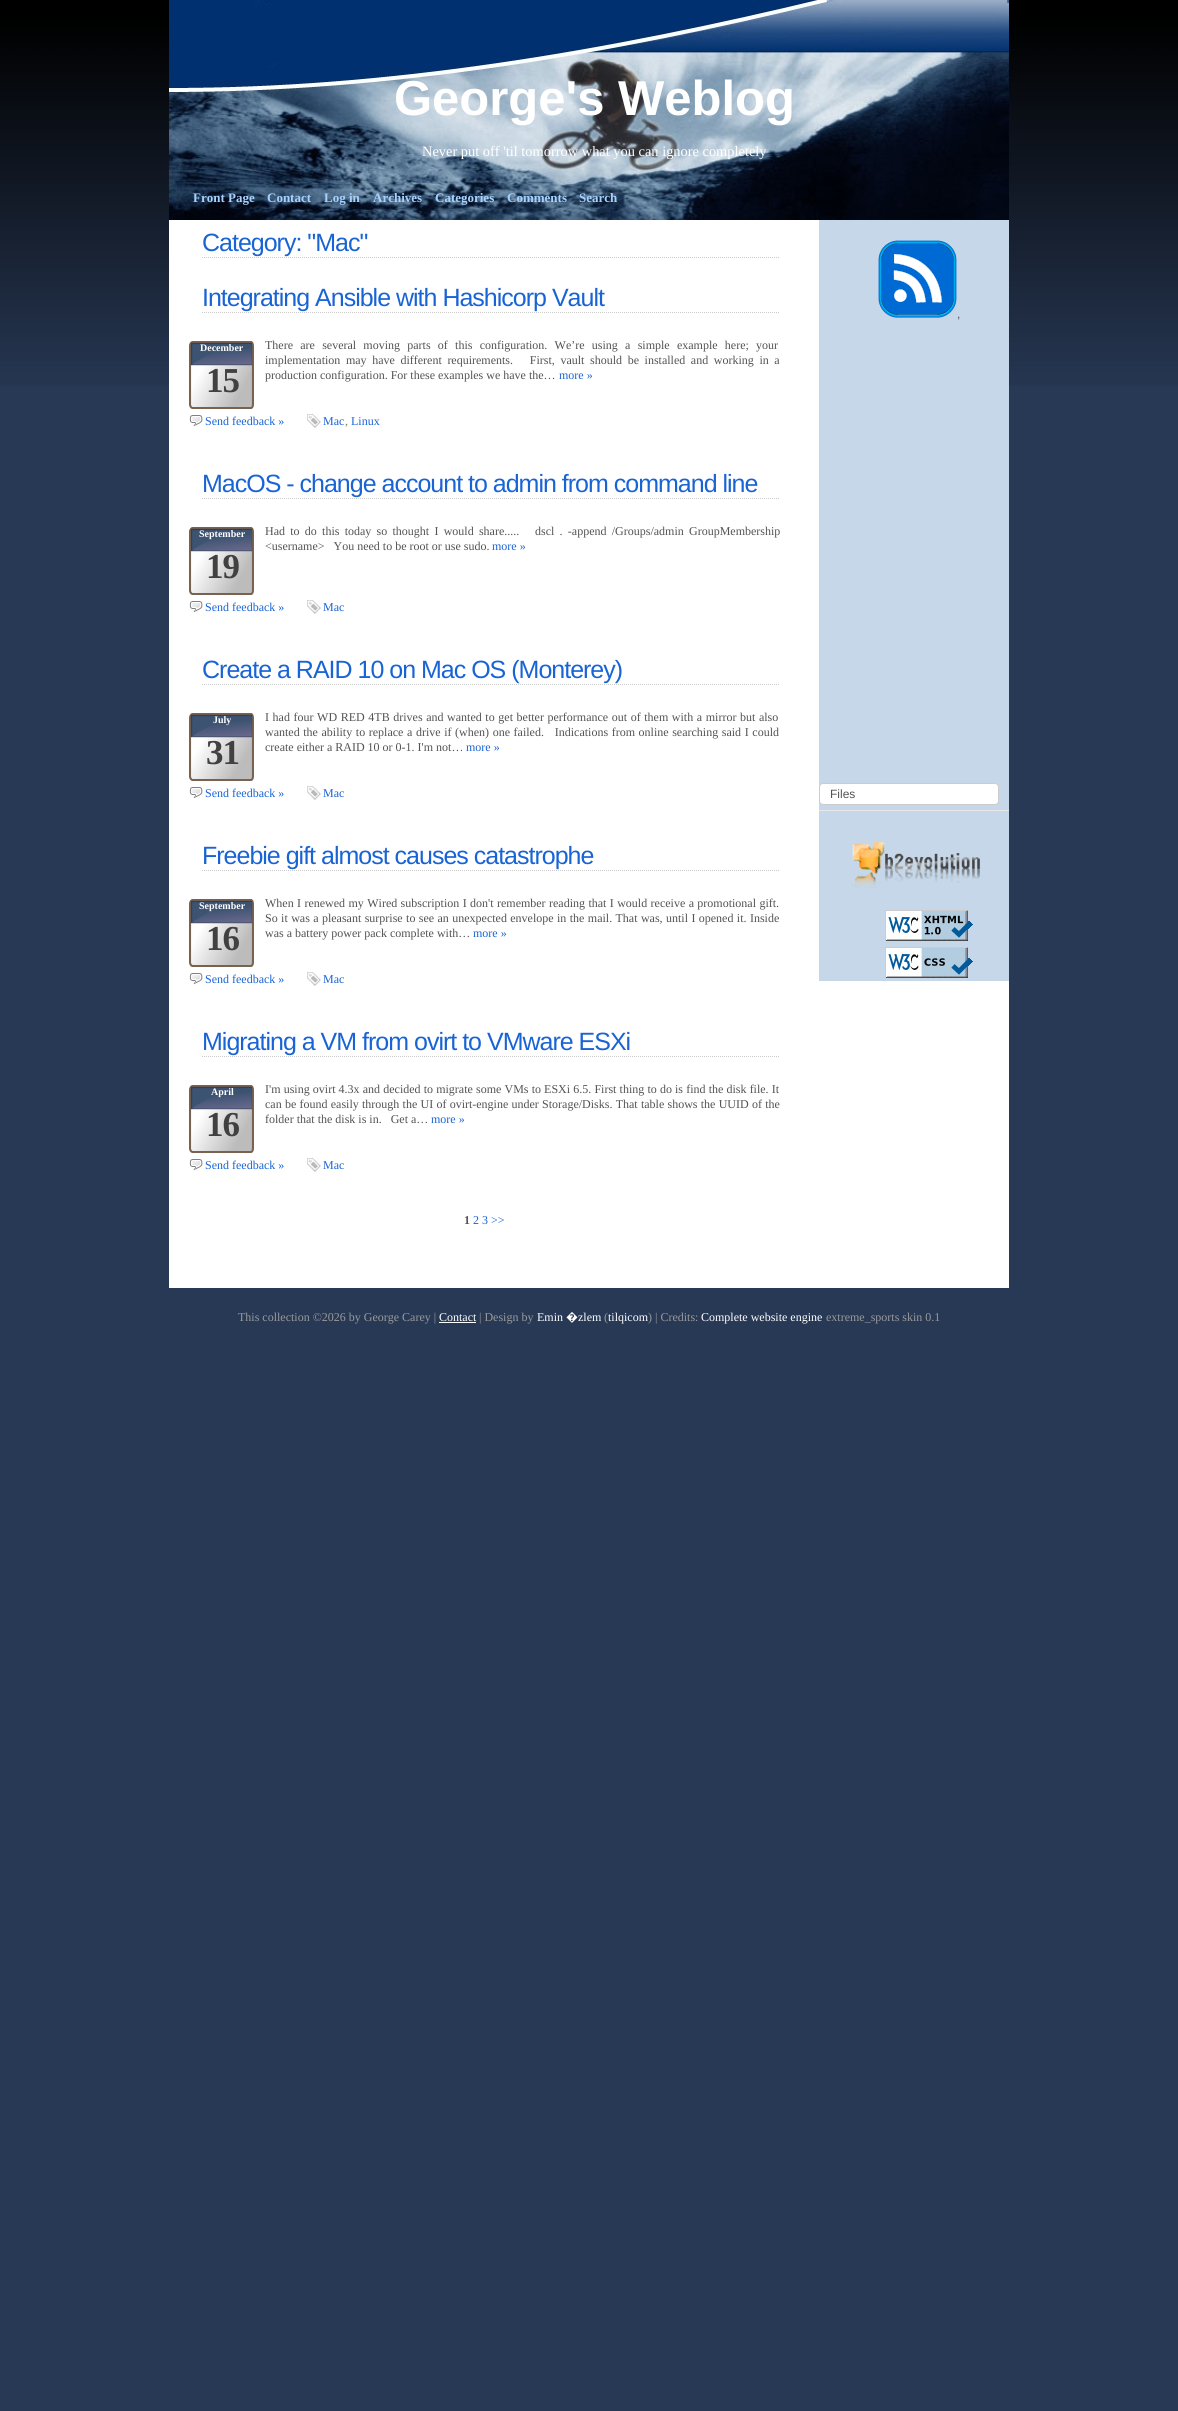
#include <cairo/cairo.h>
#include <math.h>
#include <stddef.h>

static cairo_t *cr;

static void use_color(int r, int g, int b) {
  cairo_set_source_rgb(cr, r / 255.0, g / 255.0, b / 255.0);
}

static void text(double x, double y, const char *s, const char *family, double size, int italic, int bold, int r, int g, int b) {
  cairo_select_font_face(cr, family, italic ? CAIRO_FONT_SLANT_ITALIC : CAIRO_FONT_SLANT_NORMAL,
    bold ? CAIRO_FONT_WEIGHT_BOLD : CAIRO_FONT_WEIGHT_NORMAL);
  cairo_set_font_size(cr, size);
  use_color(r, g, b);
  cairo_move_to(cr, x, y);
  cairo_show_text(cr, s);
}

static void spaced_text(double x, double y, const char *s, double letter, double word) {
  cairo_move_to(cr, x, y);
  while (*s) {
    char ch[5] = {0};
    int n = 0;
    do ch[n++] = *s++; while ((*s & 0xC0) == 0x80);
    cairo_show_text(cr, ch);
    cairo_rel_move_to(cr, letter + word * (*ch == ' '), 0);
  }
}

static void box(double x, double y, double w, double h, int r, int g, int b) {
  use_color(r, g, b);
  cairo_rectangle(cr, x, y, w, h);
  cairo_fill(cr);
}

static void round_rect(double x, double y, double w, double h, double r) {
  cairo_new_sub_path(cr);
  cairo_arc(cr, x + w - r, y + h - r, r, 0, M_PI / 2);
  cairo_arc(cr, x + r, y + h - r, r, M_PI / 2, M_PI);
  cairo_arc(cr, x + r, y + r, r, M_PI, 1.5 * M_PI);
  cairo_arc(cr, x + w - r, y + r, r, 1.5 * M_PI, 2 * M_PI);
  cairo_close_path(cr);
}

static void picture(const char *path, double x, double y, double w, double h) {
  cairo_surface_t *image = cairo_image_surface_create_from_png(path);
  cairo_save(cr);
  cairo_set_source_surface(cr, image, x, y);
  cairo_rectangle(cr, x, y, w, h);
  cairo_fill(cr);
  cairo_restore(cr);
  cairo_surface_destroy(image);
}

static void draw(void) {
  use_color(40, 57, 86);
  cairo_paint(cr);
  picture("img_01.png", 0, 0, 1178, 386);
  box(169, 220, 840, 1068, 255, 255, 255);
  picture("img_02.png", 169, 0, 840, 220);
  cairo_new_path(cr);
  cairo_move_to(cr, 202, 257.5);
  cairo_line_to(cr, 779, 257.5);
  use_color(204, 204, 204);
  cairo_set_line_width(cr, 1);
  cairo_set_dash(cr, (double[]){1, 1}, 2, 0);
  cairo_stroke(cr);
  cairo_new_path(cr);
  cairo_move_to(cr, 202, 312.5);
  cairo_line_to(cr, 779, 312.5);
  cairo_stroke(cr);
  picture("img_03.png", 189, 341, 65, 68);
  picture("img_04.png", 189, 415, 14, 12);
  picture("img_05.png", 307, 414, 14, 14);
  cairo_new_path(cr);
  cairo_move_to(cr, 202, 498.5);
  cairo_line_to(cr, 779, 498.5);
  cairo_stroke(cr);
  picture("img_03.png", 189, 527, 65, 68);
  picture("img_04.png", 189, 601, 14, 12);
  picture("img_05.png", 307, 600, 14, 14);
  cairo_new_path(cr);
  cairo_move_to(cr, 202, 684.5);
  cairo_line_to(cr, 779, 684.5);
  cairo_stroke(cr);
  picture("img_03.png", 189, 713, 65, 68);
  picture("img_04.png", 189, 787, 14, 12);
  picture("img_05.png", 307, 786, 14, 14);
  cairo_new_path(cr);
  cairo_move_to(cr, 202, 870.5);
  cairo_line_to(cr, 779, 870.5);
  cairo_stroke(cr);
  picture("img_03.png", 189, 899, 65, 68);
  picture("img_04.png", 189, 973, 14, 12);
  picture("img_05.png", 307, 972, 14, 14);
  cairo_new_path(cr);
  cairo_move_to(cr, 202, 1056.5);
  cairo_line_to(cr, 779, 1056.5);
  cairo_stroke(cr);
  picture("img_03.png", 189, 1085, 65, 68);
  picture("img_04.png", 189, 1159, 14, 12);
  picture("img_05.png", 307, 1158, 14, 14);
  box(819, 220, 190, 761, 197, 215, 232);
  picture("img_06.png", 878, 240, 79, 78);
  box(819, 810, 190, 1, 232, 232, 232);
  use_color(255, 255, 255);
  round_rect(819.5, 783.5, 179, 21, 3.5);
  cairo_fill_preserve(cr);
  use_color(204, 204, 204);
  cairo_set_dash(cr, NULL, 0, 0);
  cairo_stroke(cr);
  picture("img_07.png", 851, 842, 129, 46);
  picture("img_08.png", 885, 910, 88, 31);
  picture("img_09.png", 885, 947, 88, 31);
  box(439, 1322, 37, 1, 255, 255, 255);
  text(394, 115, "George's Weblog", "Liberation Sans", 49, 0, 1, 255, 255, 255);
  text(422, 156, "Never put off 'til tomorrow what you can ignore completely", "Liberation Serif", 14.4, 0, 0, 255, 255, 255);
  text(193, 202, "Front Page", "Liberation Serif", 13, 0, 1, 166, 210, 255);
  text(267, 202, "Contact", "Liberation Serif", 13, 0, 1, 166, 210, 255);
  text(324, 202, "Log in", "Liberation Serif", 13, 0, 1, 166, 210, 255);
  text(373, 202, "Archives", "Liberation Serif", 13, 0, 1, 166, 210, 255);
  text(435, 202, "Categories", "Liberation Serif", 13, 0, 1, 166, 210, 255);
  text(507, 202, "Comments", "Liberation Serif", 13, 0, 1, 166, 210, 255);
  text(579, 202, "Search", "Liberation Serif", 13, 0, 1, 166, 210, 255);
  cairo_select_font_face(cr, "Liberation Sans", CAIRO_FONT_SLANT_NORMAL, CAIRO_FONT_WEIGHT_NORMAL);
  cairo_set_font_size(cr, 25);
  use_color(25, 100, 213);
  spaced_text(202, 251, "Category: \"Mac\"", -1, 0);
  spaced_text(202, 306, "Integrating Ansible with Hashicorp Vault", -1, 0);
  text(200, 351, "December", "Liberation Serif", 10, 0, 1, 255, 255, 255);
  cairo_set_font_size(cr, 35);
  use_color(65, 65, 65);
  spaced_text(206, 392, "15", -1, 0);
  cairo_select_font_face(cr, "Liberation Serif", CAIRO_FONT_SLANT_NORMAL, CAIRO_FONT_WEIGHT_NORMAL);
  cairo_set_font_size(cr, 12);
  use_color(83, 83, 83);
  spaced_text(265, 349, "There are several moving parts of this configuration. We’re using a simple example here; your", 0, 4.25);
  spaced_text(265, 364, "implementation may have different requirements.   First, vault should be installed and working in a", 0, 2.6);
  text(265, 379, "production configuration. For these examples we have the…", "Liberation Serif", 12, 0, 0, 83, 83, 83);
  text(559, 379, "more »", "Liberation Serif", 12, 0, 0, 25, 100, 213);
  text(205, 425, "Send feedback »", "Liberation Serif", 12, 0, 0, 25, 100, 213);
  text(323, 425, "Mac", "Liberation Serif", 12, 0, 0, 25, 100, 213);
  text(345, 425, ",", "Liberation Serif", 12, 0, 0, 119, 119, 119);
  text(351, 425, "Linux", "Liberation Serif", 12, 0, 0, 25, 100, 213);
  cairo_select_font_face(cr, "Liberation Sans", CAIRO_FONT_SLANT_NORMAL, CAIRO_FONT_WEIGHT_NORMAL);
  cairo_set_font_size(cr, 25);
  spaced_text(202, 492, "MacOS - change account to admin from command line", -1, 0);
  text(199, 537, "September", "Liberation Serif", 10, 0, 1, 255, 255, 255);
  cairo_set_font_size(cr, 35);
  use_color(65, 65, 65);
  spaced_text(206, 578, "19", -1, 0);
  cairo_select_font_face(cr, "Liberation Serif", CAIRO_FONT_SLANT_NORMAL, CAIRO_FONT_WEIGHT_NORMAL);
  cairo_set_font_size(cr, 12);
  use_color(83, 83, 83);
  spaced_text(265, 535, "Had to do this today so thought I would share.....   dscl . -append /Groups/admin GroupMembership", 0, 2.25);
  text(265, 550, "<username>   You need to be root or use sudo.", "Liberation Serif", 12, 0, 0, 83, 83, 83);
  text(492, 550, "more »", "Liberation Serif", 12, 0, 0, 25, 100, 213);
  text(205, 611, "Send feedback »", "Liberation Serif", 12, 0, 0, 25, 100, 213);
  text(323, 611, "Mac", "Liberation Serif", 12, 0, 0, 25, 100, 213);
  cairo_select_font_face(cr, "Liberation Sans", CAIRO_FONT_SLANT_NORMAL, CAIRO_FONT_WEIGHT_NORMAL);
  cairo_set_font_size(cr, 25);
  spaced_text(202, 678, "Create a RAID 10 on Mac OS (Monterey)", -1, 0);
  text(213, 723, "July", "Liberation Serif", 10, 0, 1, 255, 255, 255);
  cairo_set_font_size(cr, 35);
  use_color(65, 65, 65);
  spaced_text(206, 764, "31", -1, 0);
  cairo_select_font_face(cr, "Liberation Serif", CAIRO_FONT_SLANT_NORMAL, CAIRO_FONT_WEIGHT_NORMAL);
  cairo_set_font_size(cr, 12);
  use_color(83, 83, 83);
  spaced_text(265, 721, "I had four WD RED 4TB drives and wanted to get better performance out of them with a mirror but also", 0, 0.6);
  spaced_text(265, 736, "wanted the ability to replace a drive if (when) one failed.   Indications from online searching said I could", 0, 0.6);
  text(265, 751, "create either a RAID 10 or 0-1. I'm not…", "Liberation Serif", 12, 0, 0, 83, 83, 83);
  text(466, 751, "more »", "Liberation Serif", 12, 0, 0, 25, 100, 213);
  text(205, 797, "Send feedback »", "Liberation Serif", 12, 0, 0, 25, 100, 213);
  text(323, 797, "Mac", "Liberation Serif", 12, 0, 0, 25, 100, 213);
  cairo_select_font_face(cr, "Liberation Sans", CAIRO_FONT_SLANT_NORMAL, CAIRO_FONT_WEIGHT_NORMAL);
  cairo_set_font_size(cr, 25);
  spaced_text(202, 864, "Freebie gift almost causes catastrophe", -1, 0);
  text(199, 909, "September", "Liberation Serif", 10, 0, 1, 255, 255, 255);
  cairo_set_font_size(cr, 35);
  use_color(65, 65, 65);
  spaced_text(206, 950, "16", -1, 0);
  cairo_select_font_face(cr, "Liberation Serif", CAIRO_FONT_SLANT_NORMAL, CAIRO_FONT_WEIGHT_NORMAL);
  cairo_set_font_size(cr, 12);
  use_color(83, 83, 83);
  spaced_text(265, 907, "When I renewed my Wired subscription I don't remember reading that I would receive a promotional gift.", 0, 0.4);
  spaced_text(265, 922, "So it was a pleasant surprise to see an unexpected envelope in the mail. That was, until I opened it. Inside", 0, 0.4);
  text(265, 937, "was a battery power pack complete with…", "Liberation Serif", 12, 0, 0, 83, 83, 83);
  text(473, 937, "more »", "Liberation Serif", 12, 0, 0, 25, 100, 213);
  text(205, 983, "Send feedback »", "Liberation Serif", 12, 0, 0, 25, 100, 213);
  text(323, 983, "Mac", "Liberation Serif", 12, 0, 0, 25, 100, 213);
  cairo_select_font_face(cr, "Liberation Sans", CAIRO_FONT_SLANT_NORMAL, CAIRO_FONT_WEIGHT_NORMAL);
  cairo_set_font_size(cr, 25);
  spaced_text(202, 1050, "Migrating a VM from ovirt to VMware ESXi", -1, 0);
  text(211, 1095, "April", "Liberation Serif", 10, 0, 1, 255, 255, 255);
  cairo_set_font_size(cr, 35);
  use_color(65, 65, 65);
  spaced_text(206, 1136, "16", -1, 0);
  cairo_select_font_face(cr, "Liberation Serif", CAIRO_FONT_SLANT_NORMAL, CAIRO_FONT_WEIGHT_NORMAL);
  cairo_set_font_size(cr, 12);
  use_color(83, 83, 83);
  spaced_text(265, 1093, "I'm using ovirt 4.3x and decided to migrate some VMs to ESXi 6.5. First thing to do is find the disk file. It", 0, 0.15);
  spaced_text(265, 1108, "can be found easily through the UI of ovirt-engine under Storage/Disks. That table shows the UUID of the", 0, 0.25);
  text(265, 1123, "folder that the disk is in.   Get a…", "Liberation Serif", 12, 0, 0, 83, 83, 83);
  text(431, 1123, "more »", "Liberation Serif", 12, 0, 0, 25, 100, 213);
  text(205, 1169, "Send feedback »", "Liberation Serif", 12, 0, 0, 25, 100, 213);
  text(323, 1169, "Mac", "Liberation Serif", 12, 0, 0, 25, 100, 213);
  text(464, 1224, "1", "Liberation Serif", 12, 0, 1, 83, 83, 83);
  text(473, 1224, "2 3 >>", "Liberation Serif", 12, 0, 0, 25, 100, 213);
  text(957, 318, ",", "Liberation Sans", 12, 0, 0, 83, 83, 83);
  text(830, 798, "Files", "Liberation Sans", 12, 0, 0, 83, 83, 83);
  text(238, 1321, "This collection ©2026 by George Carey |", "Liberation Serif", 12, 0, 0, 153, 153, 153);
  text(439, 1321, "Contact", "Liberation Serif", 12, 0, 0, 255, 255, 255);
  text(479, 1321, "| Design by", "Liberation Serif", 12, 0, 0, 153, 153, 153);
  text(537, 1321, "Emin", "Liberation Serif", 12, 0, 0, 255, 255, 255);
  text(566, 1321, "�", "Noto Sans", 12, 0, 0, 255, 255, 255);
  text(578, 1321, "zlem", "Liberation Serif", 12, 0, 0, 255, 255, 255);
  text(604, 1321, "(", "Liberation Serif", 12, 0, 0, 153, 153, 153);
  text(608, 1321, "tilqicom", "Liberation Serif", 12, 0, 0, 255, 255, 255);
  text(648, 1321, ") | Credits:", "Liberation Serif", 12, 0, 0, 153, 153, 153);
  text(701, 1321, "Complete website engine", "Liberation Serif", 12, 0, 0, 255, 255, 255);
  text(826, 1321, "extreme_sports skin 0.1", "Liberation Serif", 12, 0, 0, 153, 153, 153);
}

int main(void) {
  cairo_surface_t *surface = cairo_image_surface_create(CAIRO_FORMAT_RGB24, 1178, 2411);
  cr = cairo_create(surface);
  cairo_font_options_t *options = cairo_font_options_create();
  cairo_font_options_set_hint_metrics(options, CAIRO_HINT_METRICS_OFF);
  cairo_font_options_set_hint_style(options, CAIRO_HINT_STYLE_NONE);
  cairo_set_font_options(cr, options);
  cairo_set_miter_limit(cr, 4);
  draw();
  cairo_surface_write_to_png(surface, "out.png");
  cairo_font_options_destroy(options);
  cairo_destroy(cr);
  cairo_surface_destroy(surface);
  return 0;
}
